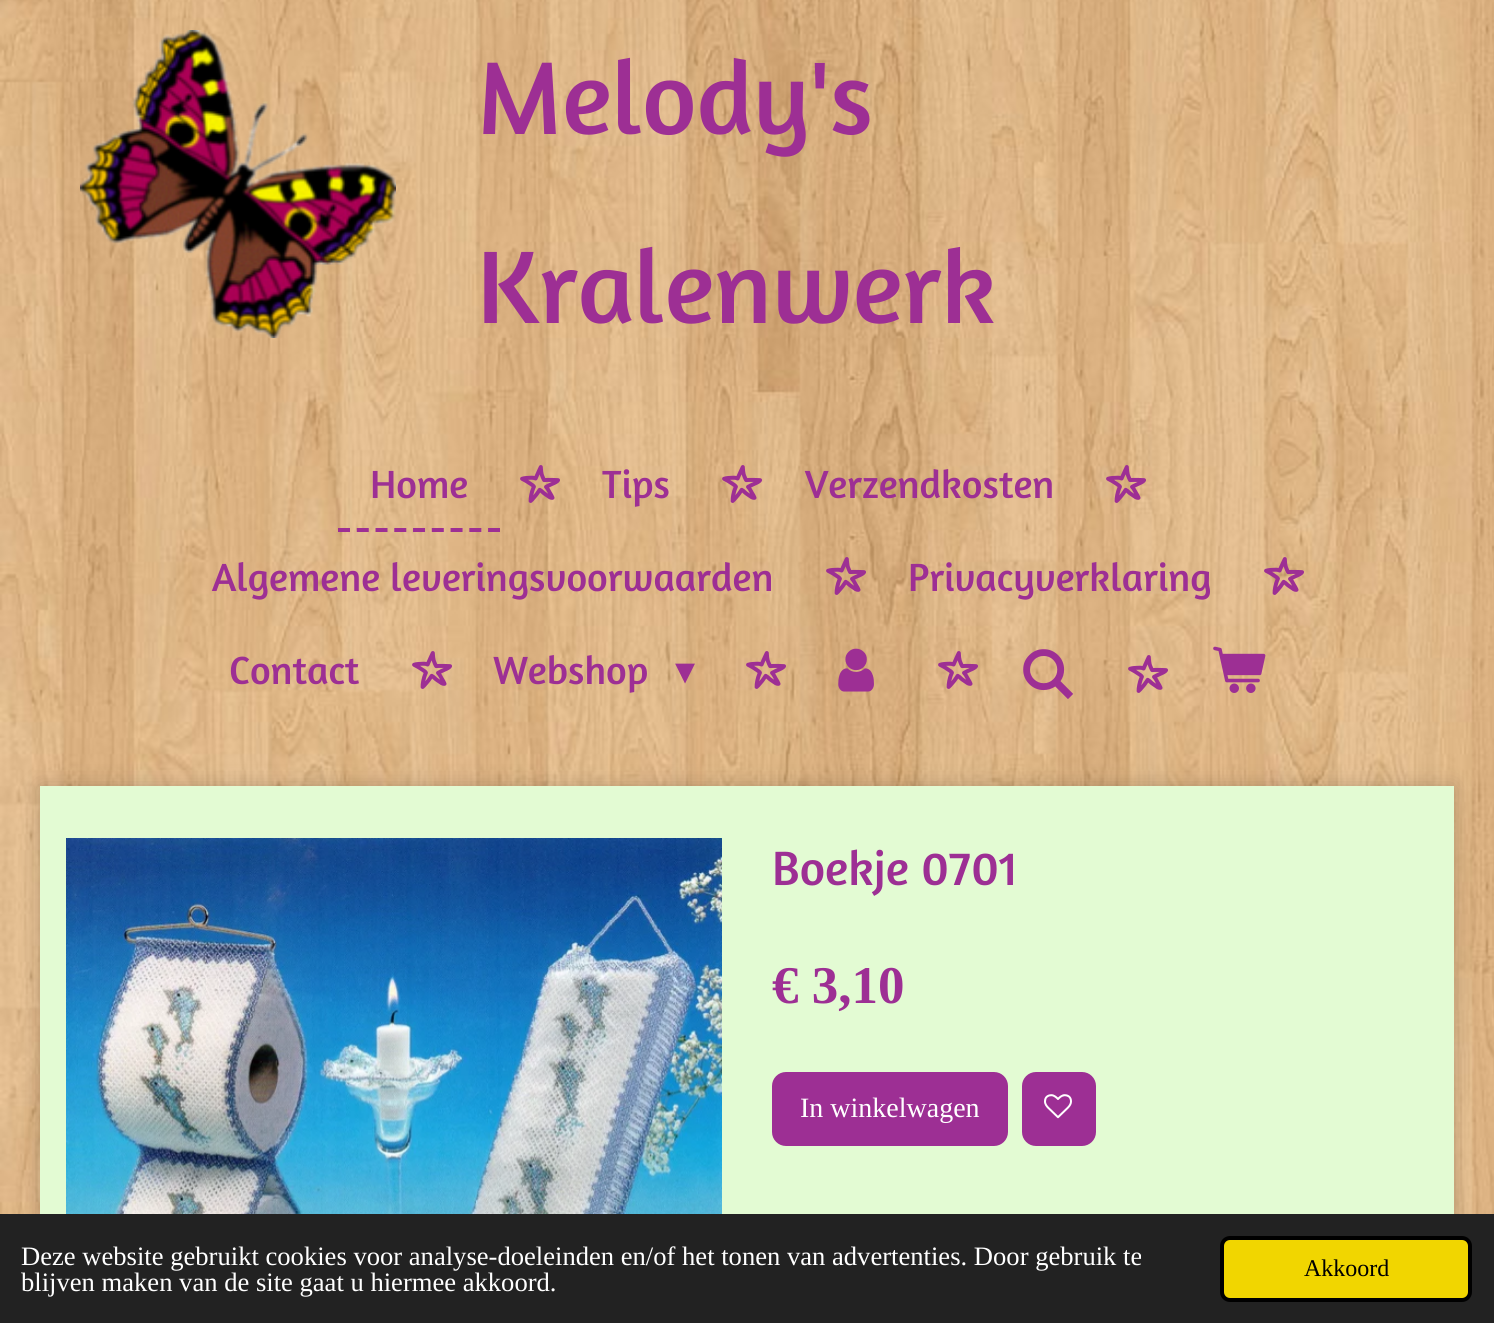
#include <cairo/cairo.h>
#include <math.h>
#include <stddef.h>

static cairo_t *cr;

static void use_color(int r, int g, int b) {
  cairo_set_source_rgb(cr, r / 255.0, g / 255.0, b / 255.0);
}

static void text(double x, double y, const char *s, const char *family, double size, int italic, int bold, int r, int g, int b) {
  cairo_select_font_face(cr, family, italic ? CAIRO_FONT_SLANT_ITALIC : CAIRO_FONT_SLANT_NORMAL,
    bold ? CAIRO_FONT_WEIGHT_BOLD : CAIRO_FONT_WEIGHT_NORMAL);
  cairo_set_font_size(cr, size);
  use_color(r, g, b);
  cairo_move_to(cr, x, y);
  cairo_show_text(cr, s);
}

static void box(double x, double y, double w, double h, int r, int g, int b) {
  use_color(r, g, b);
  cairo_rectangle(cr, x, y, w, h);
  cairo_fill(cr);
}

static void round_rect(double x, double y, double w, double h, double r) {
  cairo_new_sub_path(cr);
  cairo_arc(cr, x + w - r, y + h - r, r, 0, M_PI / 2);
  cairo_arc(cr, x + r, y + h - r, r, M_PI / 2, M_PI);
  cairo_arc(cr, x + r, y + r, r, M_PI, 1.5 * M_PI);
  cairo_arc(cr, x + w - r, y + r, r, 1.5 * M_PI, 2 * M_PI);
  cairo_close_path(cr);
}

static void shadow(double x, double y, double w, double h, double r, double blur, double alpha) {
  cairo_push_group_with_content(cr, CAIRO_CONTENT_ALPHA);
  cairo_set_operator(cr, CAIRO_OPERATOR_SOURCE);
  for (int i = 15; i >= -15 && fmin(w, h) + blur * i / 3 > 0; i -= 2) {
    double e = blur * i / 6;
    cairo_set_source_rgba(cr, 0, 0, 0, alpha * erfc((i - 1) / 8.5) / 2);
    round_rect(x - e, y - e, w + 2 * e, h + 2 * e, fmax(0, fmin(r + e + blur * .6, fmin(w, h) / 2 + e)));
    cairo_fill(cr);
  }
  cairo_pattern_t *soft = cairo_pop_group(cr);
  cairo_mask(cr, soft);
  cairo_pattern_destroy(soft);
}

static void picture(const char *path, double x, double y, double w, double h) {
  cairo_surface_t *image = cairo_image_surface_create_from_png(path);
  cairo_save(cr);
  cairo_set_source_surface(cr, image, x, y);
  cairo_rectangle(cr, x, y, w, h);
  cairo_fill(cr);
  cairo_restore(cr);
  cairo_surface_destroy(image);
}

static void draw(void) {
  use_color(255, 255, 255);
  cairo_paint(cr);
  picture("img_01.png", 0, 0, 1494, 1214);
  picture("img_02.png", 80, 30, 316, 308);
  cairo_new_path(cr);
  cairo_move_to(cr, 338, 530);
  cairo_line_to(cr, 500, 530);
  use_color(157, 47, 148);
  cairo_set_line_width(cr, 4);
  cairo_set_dash(cr, (double[]){12, 6.76}, 2, 0);
  cairo_stroke(cr);
  picture("img_03.png", 520, 465, 40, 38);
  picture("img_04.png", 722, 465, 40, 38);
  picture("img_05.png", 1106, 465, 40, 38);
  picture("img_06.png", 826, 557, 40, 38);
  picture("img_07.png", 1264, 557, 40, 38);
  picture("img_08.png", 412, 651, 40, 38);
  picture("img_09.png", 746, 651, 40, 38);
  picture("img_10.png", 838, 648, 36, 44);
  picture("img_11.png", 938, 651, 40, 38);
  picture("img_12.png", 1023, 649, 51, 50);
  picture("img_13.png", 1128, 655, 40, 38);
  picture("img_14.png", 1213, 646, 53, 47);
  use_color(0, 0, 0);
  shadow(40, 786, 1414, 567, 0, 10, 0.2);
  box(40, 786, 1414, 428, 227, 251, 211);
  picture("img_15.png", 66, 838, 656, 376);
  use_color(157, 47, 148);
  round_rect(772, 1072, 236, 74, 14);
  cairo_fill(cr);
  round_rect(1022, 1072, 74, 74, 14);
  cairo_fill(cr);
  picture("img_16.png", 1044, 1094, 28, 25);
  box(0, 1214, 1494, 109, 34, 34, 34);
  use_color(241, 214, 0);
  round_rect(1222, 1238, 248, 62, 8);
  cairo_fill_preserve(cr);
  use_color(0, 0, 0);
  cairo_set_dash(cr, NULL, 0, 0);
  cairo_stroke(cr);
  text(477, 134, "Melody's", "Amaranth", 105, 0, 0, 157, 47, 148);
  text(477, 323, "Kralenwerk", "Amaranth", 105, 0, 0, 157, 47, 148);
  text(370, 498, "Home", "Amaranth", 40, 0, 0, 157, 47, 148);
  text(602, 498, "Tips", "Amaranth", 40, 0, 0, 157, 47, 148);
  text(805, 498, "Verzendkosten", "Amaranth", 40, 0, 0, 157, 47, 148);
  text(212, 591, "Algemene leveringsvoorwaarden", "Amaranth", 40, 0, 0, 157, 47, 148);
  text(908, 591, "Privacyverklaring", "Amaranth", 40, 0, 0, 157, 47, 148);
  text(229, 684, "Contact", "Amaranth", 40, 0, 0, 157, 47, 148);
  text(493, 684, "Webshop", "Amaranth", 40, 0, 0, 157, 47, 148);
  text(675, 684, "▾", "DejaVu Sans", 40, 0, 0, 157, 47, 148);
  text(772, 885, "Boekje 0701", "Amaranth", 49, 0, 0, 157, 47, 148);
  text(772, 1003, "€ 3,10", "Liberation Serif", 53, 0, 1, 157, 47, 148);
  text(800, 1117, "In winkelwagen", "Liberation Serif", 28, 0, 0, 255, 255, 255);
  text(21, 1265, "Deze website gebruikt cookies voor analyse-doeleinden en/of het tonen van advertenties. Door gebruik te", "Liberation Serif", 26.6, 0, 0, 255, 255, 255);
  text(21, 1291, "blijven maken van de site gaat u hiermee akkoord.", "Liberation Serif", 26.6, 0, 0, 255, 255, 255);
  text(1304, 1276, "Akkoord", "Liberation Serif", 24, 0, 0, 0, 0, 0);
}

int main(void) {
  cairo_surface_t *surface = cairo_image_surface_create(CAIRO_FORMAT_RGB24, 1494, 1323);
  cr = cairo_create(surface);
  cairo_font_options_t *options = cairo_font_options_create();
  cairo_font_options_set_hint_metrics(options, CAIRO_HINT_METRICS_OFF);
  cairo_font_options_set_hint_style(options, CAIRO_HINT_STYLE_NONE);
  cairo_set_font_options(cr, options);
  cairo_set_miter_limit(cr, 4);
  draw();
  cairo_surface_write_to_png(surface, "out.png");
  cairo_font_options_destroy(options);
  cairo_destroy(cr);
  cairo_surface_destroy(surface);
  return 0;
}
